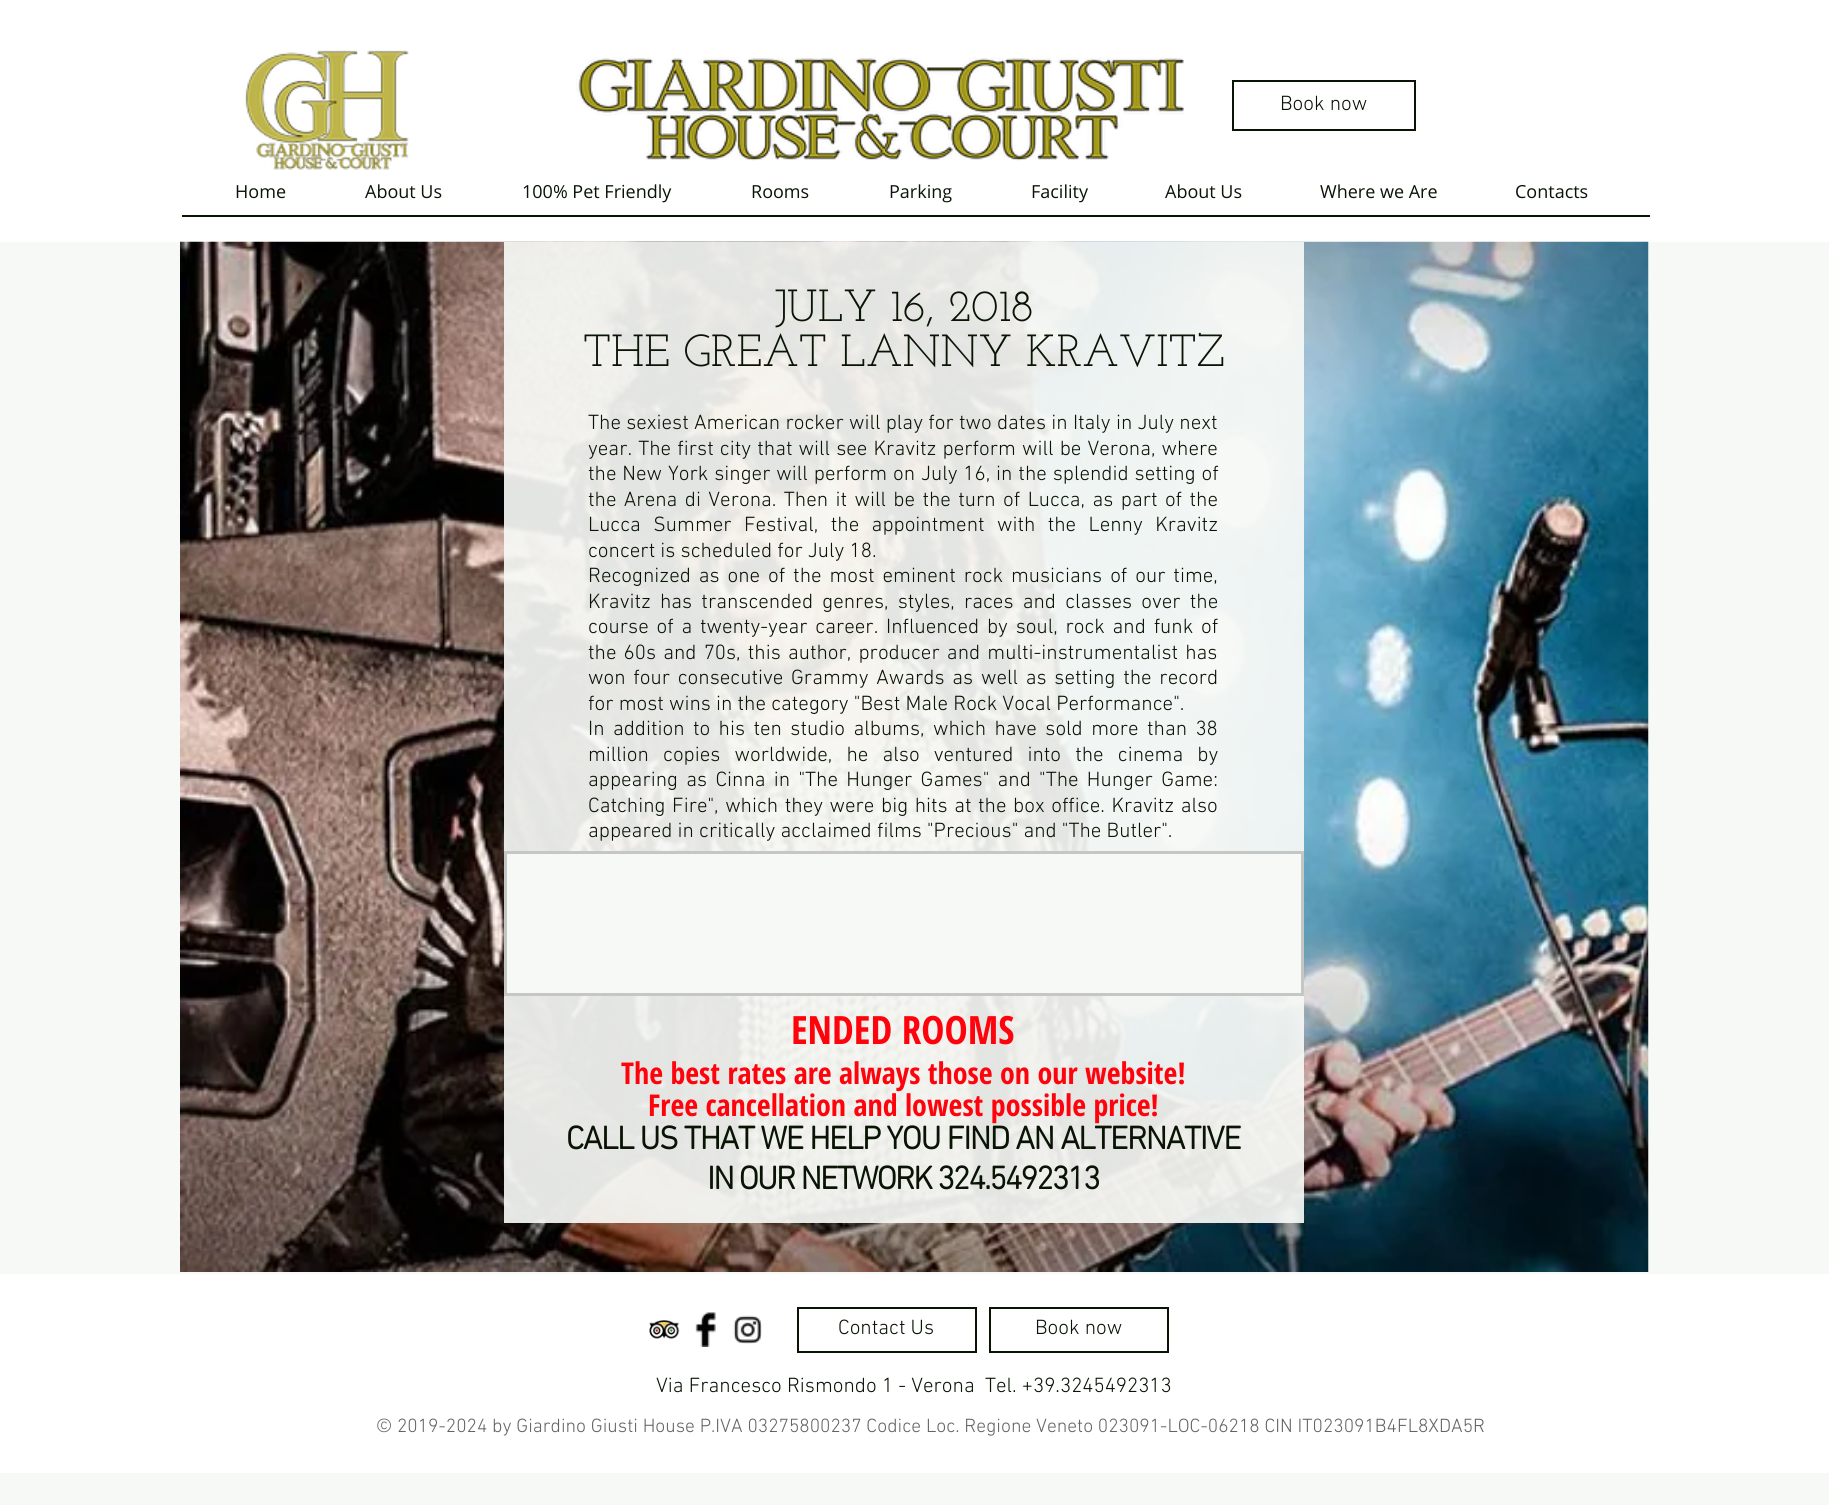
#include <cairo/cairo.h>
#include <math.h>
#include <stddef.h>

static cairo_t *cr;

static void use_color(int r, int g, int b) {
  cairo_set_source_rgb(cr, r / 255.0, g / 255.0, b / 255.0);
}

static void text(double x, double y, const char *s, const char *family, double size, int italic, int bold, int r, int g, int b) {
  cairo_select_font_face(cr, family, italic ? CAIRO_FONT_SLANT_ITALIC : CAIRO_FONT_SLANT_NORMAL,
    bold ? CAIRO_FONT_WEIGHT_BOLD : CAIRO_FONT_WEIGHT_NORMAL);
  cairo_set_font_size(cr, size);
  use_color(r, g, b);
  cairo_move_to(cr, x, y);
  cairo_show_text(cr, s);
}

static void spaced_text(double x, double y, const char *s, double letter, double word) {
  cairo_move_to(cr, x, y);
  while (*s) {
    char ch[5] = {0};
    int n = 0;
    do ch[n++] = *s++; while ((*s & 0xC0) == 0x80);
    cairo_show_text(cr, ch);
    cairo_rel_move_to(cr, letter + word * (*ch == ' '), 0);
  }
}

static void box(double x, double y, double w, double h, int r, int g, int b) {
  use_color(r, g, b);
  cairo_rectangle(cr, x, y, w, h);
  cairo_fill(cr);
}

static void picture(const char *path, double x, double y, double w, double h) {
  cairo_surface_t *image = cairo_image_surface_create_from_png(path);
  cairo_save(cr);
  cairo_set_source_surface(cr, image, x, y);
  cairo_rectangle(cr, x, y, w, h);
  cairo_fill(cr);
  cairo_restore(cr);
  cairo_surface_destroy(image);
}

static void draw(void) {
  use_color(246, 249, 245);
  cairo_paint(cr);
  box(0, 0, 1829, 242, 255, 255, 255);
  picture("img_01.png", 245, 50, 164, 120);
  picture("img_02.png", 576, 57, 608, 104);
  cairo_rectangle(cr, 1233, 81, 182, 49);
  use_color(9, 20, 5);
  cairo_stroke(cr);
  box(182, 215, 1468, 2, 9, 20, 5);
  picture("img_03.png", 180, 241, 1469, 1031);
  cairo_set_source_rgba(cr, 0.965, 0.976, 0.961, 0.92);
  cairo_rectangle(cr, 504, 242, 800, 981);
  cairo_fill(cr);
  use_color(246, 249, 245);
  cairo_rectangle(cr, 505.5, 852.5, 797, 142);
  cairo_fill_preserve(cr);
  use_color(197, 199, 196);
  cairo_set_line_width(cr, 3);
  cairo_stroke(cr);
  box(0, 1274, 1829, 199, 255, 255, 255);
  picture("img_04.png", 649, 1320, 31, 19);
  picture("img_05.png", 695, 1312, 21, 35);
  picture("img_06.png", 733, 1315, 29, 29);
  cairo_rectangle(cr, 798, 1308, 178, 44);
  use_color(9, 20, 5);
  cairo_set_line_width(cr, 2);
  cairo_stroke(cr);
  cairo_rectangle(cr, 990, 1308, 178, 44);
  cairo_stroke(cr);
  text(1280, 110, "Book now", "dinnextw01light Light", 21, 0, 0, 9, 20, 5);
  text(235, 198, "Home", "Open Sans", 18, 0, 0, 9, 20, 5);
  text(365, 198, "About Us", "Open Sans", 18, 0, 0, 9, 20, 5);
  text(522, 198, "100% Pet Friendly", "Open Sans", 18, 0, 0, 9, 20, 5);
  text(751, 198, "Rooms", "Open Sans", 18, 0, 0, 9, 20, 5);
  text(889, 198, "Parking", "Open Sans", 18, 0, 0, 9, 20, 5);
  text(1031, 198, "Facility", "Open Sans", 18, 0, 0, 9, 20, 5);
  text(1165, 198, "About Us", "Open Sans", 18, 0, 0, 9, 20, 5);
  text(1320, 198, "Where we Are", "Open Sans", 18, 0, 0, 9, 20, 5);
  text(1515, 198, "Contacts", "Open Sans", 18, 0, 0, 9, 20, 5);
  text(774, 321, "JULY 16, 2018", "Josefin Slab", 45, 0, 0, 9, 20, 5);
  text(583, 366, "THE GREAT LANNY KRAVITZ", "Josefin Slab", 45, 0, 0, 9, 20, 5);
  cairo_select_font_face(cr, "dinnextw01light Light", CAIRO_FONT_SLANT_NORMAL, CAIRO_FONT_WEIGHT_NORMAL);
  cairo_set_font_size(cr, 21);
  spaced_text(588, 429, "The sexiest American rocker will play for two dates in Italy in July next", 0, 0.1);
  spaced_text(588, 455, "year. The first city that will see Kravitz perform will be Verona, where", 0, 1);
  spaced_text(588, 480, "the New York singer will perform on July 16, in the splendid setting of", 0, 0.75);
  spaced_text(588, 506, "the Arena di Verona. Then it will be the turn of Lucca, as part of the", 0, 2.25);
  spaced_text(588, 531, "Lucca Summer Festival, the appointment with the Lenny Kravitz", 0, 7.25);
  text(588, 557, "concert is scheduled for July 18.", "dinnextw01light Light", 21, 0, 0, 9, 20, 5);
  spaced_text(588, 582, "Recognized as one of the most eminent rock musicians of our time,", 0, 2.75);
  spaced_text(588, 608, "Kravitz has transcended genres, styles, races and classes over the", 0, 4);
  spaced_text(588, 633, "course of a twenty-year career. Influenced by soul, rock and funk of", 0, 2.6);
  spaced_text(588, 659, "the 60s and 70s, this author, producer and multi-instrumentalist has", 0, 2);
  spaced_text(588, 684, "won four consecutive Grammy Awards as well as setting the record", 0, 2.6);
  text(588, 710, "for most wins in the category \"Best Male Rock Vocal Performance\".", "dinnextw01light Light", 21, 0, 0, 9, 20, 5);
  spaced_text(588, 735, "In addition to his ten studio albums, which have sold more than 38", 0, 3.25);
  spaced_text(588, 761, "million copies worldwide, he also ventured into the cinema by", 0, 9);
  spaced_text(588, 786, "appearing as Cinna in \"The Hunger Games\" and \"The Hunger Game:", 0, 3.1);
  spaced_text(588, 812, "Catching Fire\", which they were big hits at the box office. Kravitz also", 0, 1.4);
  text(588, 837, "appeared in critically acclaimed films \"Precious\" and \"The Butler\".", "dinnextw01light Light", 21, 0, 0, 9, 20, 5);
  text(791, 1044, "ENDED ROOMS", "Open Sans Condensed", 39, 0, 1, 255, 2, 12);
  text(621, 1084, "The best rates are always those on our website!", "Open Sans Condensed", 30, 0, 1, 255, 2, 12);
  text(648, 1116, "Free cancellation and lowest possible price!", "Open Sans Condensed", 30, 0, 1, 255, 2, 12);
  cairo_select_font_face(cr, "dinnextw01light", CAIRO_FONT_SLANT_NORMAL, CAIRO_FONT_WEIGHT_BOLD);
  cairo_set_font_size(cr, 33);
  use_color(9, 20, 5);
  spaced_text(566, 1149, "CALL US THAT WE HELP YOU FIND AN ALTERNATIVE", -1.5, 0);
  spaced_text(707, 1189, "IN OUR NETWORK 324.5492313", -1.95, 0);
  text(838, 1334, "Contact Us", "dinnextw01light Light", 21, 0, 0, 9, 20, 5);
  text(1035, 1334, "Book now", "dinnextw01light Light", 21, 0, 0, 9, 20, 5);
  text(656, 1392, "Via Francesco Rismondo 1 - Verona  Tel. +39.3245492313", "dinnextw01light Light", 21, 0, 0, 9, 20, 5);
  text(376, 1432, "© 2019-2024 by Giardino Giusti House P.IVA 03275800237 Codice Loc. Regione Veneto 023091-LOC-06218 CIN IT023091B4FL8XDA5R", "dinnextw01light Light", 19.5, 0, 0, 98, 100, 98);
}

int main(void) {
  cairo_surface_t *surface = cairo_image_surface_create(CAIRO_FORMAT_RGB24, 1829, 1505);
  cr = cairo_create(surface);
  cairo_font_options_t *options = cairo_font_options_create();
  cairo_font_options_set_hint_metrics(options, CAIRO_HINT_METRICS_OFF);
  cairo_font_options_set_hint_style(options, CAIRO_HINT_STYLE_NONE);
  cairo_set_font_options(cr, options);
  cairo_set_miter_limit(cr, 4);
  draw();
  cairo_surface_write_to_png(surface, "out.png");
  cairo_font_options_destroy(options);
  cairo_destroy(cr);
  cairo_surface_destroy(surface);
  return 0;
}
